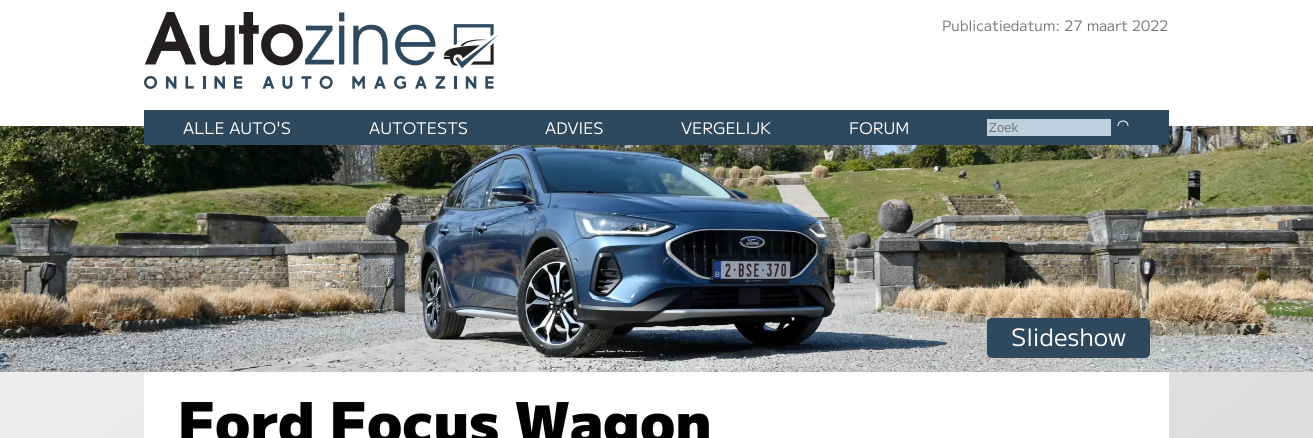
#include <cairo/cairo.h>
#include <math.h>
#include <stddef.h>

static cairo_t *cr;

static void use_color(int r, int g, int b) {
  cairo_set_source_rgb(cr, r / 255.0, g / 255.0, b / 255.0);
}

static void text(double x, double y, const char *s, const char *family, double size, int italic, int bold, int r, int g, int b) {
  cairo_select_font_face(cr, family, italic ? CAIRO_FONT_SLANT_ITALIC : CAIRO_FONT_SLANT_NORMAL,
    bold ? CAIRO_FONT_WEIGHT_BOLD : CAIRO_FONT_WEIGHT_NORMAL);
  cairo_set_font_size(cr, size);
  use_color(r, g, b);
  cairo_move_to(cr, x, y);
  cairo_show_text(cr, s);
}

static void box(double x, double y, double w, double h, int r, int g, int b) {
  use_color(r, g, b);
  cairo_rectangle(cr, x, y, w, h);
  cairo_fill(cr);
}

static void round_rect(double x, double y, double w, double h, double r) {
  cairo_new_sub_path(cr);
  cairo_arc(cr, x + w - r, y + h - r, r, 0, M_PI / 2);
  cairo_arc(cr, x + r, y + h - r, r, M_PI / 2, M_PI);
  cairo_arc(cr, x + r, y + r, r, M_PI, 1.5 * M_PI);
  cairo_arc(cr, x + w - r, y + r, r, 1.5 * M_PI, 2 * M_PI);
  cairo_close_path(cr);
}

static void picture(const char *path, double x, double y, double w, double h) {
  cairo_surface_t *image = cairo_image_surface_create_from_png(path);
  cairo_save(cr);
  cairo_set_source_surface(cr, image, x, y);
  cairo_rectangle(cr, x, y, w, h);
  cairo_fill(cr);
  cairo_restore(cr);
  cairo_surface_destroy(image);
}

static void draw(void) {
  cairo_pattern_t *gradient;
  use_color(255, 255, 255);
  cairo_paint(cr);
  picture("img_01.png", 144, 12, 354, 77);
  picture("img_02.png", 0, 126, 1313, 246);
  box(144, 110, 1025, 35, 46, 73, 94);
  box(987, 119, 124, 17, 189, 208, 222);
  cairo_save(cr);
  cairo_rectangle(cr, 1116, 119, 14, 7);
  cairo_clip(cr);
  cairo_arc(cr, 1123, 126, 5, 0, 2 * M_PI);
  use_color(255, 255, 255);
  cairo_set_line_width(cr, 1);
  cairo_stroke(cr);
  cairo_restore(cr);
  use_color(46, 73, 94);
  round_rect(987, 318, 163, 40, 5);
  cairo_fill(cr);
  gradient = cairo_pattern_create_linear(139, 260, 1174, 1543);
  cairo_pattern_add_color_stop_rgba(gradient, 0, 0.933, 0.933, 0.933, 1);
  cairo_pattern_add_color_stop_rgba(gradient, 1, 0.8, 0.8, 0.8, 1);
  cairo_set_source(cr, gradient);
  cairo_pattern_destroy(gradient);
  cairo_rectangle(cr, 0, 372, 1313, 66);
  cairo_fill(cr);
  box(144, 372, 1025, 66, 255, 255, 255);
  text(942, 31, "Publicatiedatum: 27 maart 2022", "M PLUS 1", 14.4, 0, 0, 118, 118, 118);
  text(183, 134, "ALLE AUTO'S", "M PLUS 1", 16, 0, 0, 255, 255, 255);
  text(369, 134, "AUTOTESTS", "M PLUS 1", 16, 0, 0, 255, 255, 255);
  text(545, 134, "ADVIES", "M PLUS 1", 16, 0, 0, 255, 255, 255);
  text(681, 134, "VERGELIJK", "M PLUS 1", 16, 0, 0, 255, 255, 255);
  text(849, 134, "FORUM", "M PLUS 1", 16, 0, 0, 255, 255, 255);
  text(989, 132, "Zoek", "Liberation Sans", 13, 0, 0, 118, 118, 118);
  text(1011, 346, "Slideshow", "M PLUS 1", 24, 0, 0, 255, 255, 255);
  text(178, 444, "Ford Focus Wagon", "M PLUS 1 Black", 57.5, 0, 0, 0, 0, 0);
}

int main(void) {
  cairo_surface_t *surface = cairo_image_surface_create(CAIRO_FORMAT_RGB24, 1313, 438);
  cr = cairo_create(surface);
  cairo_font_options_t *options = cairo_font_options_create();
  cairo_font_options_set_hint_metrics(options, CAIRO_HINT_METRICS_OFF);
  cairo_font_options_set_hint_style(options, CAIRO_HINT_STYLE_NONE);
  cairo_set_font_options(cr, options);
  cairo_set_miter_limit(cr, 4);
  draw();
  cairo_surface_write_to_png(surface, "out.png");
  cairo_font_options_destroy(options);
  cairo_destroy(cr);
  cairo_surface_destroy(surface);
  return 0;
}
